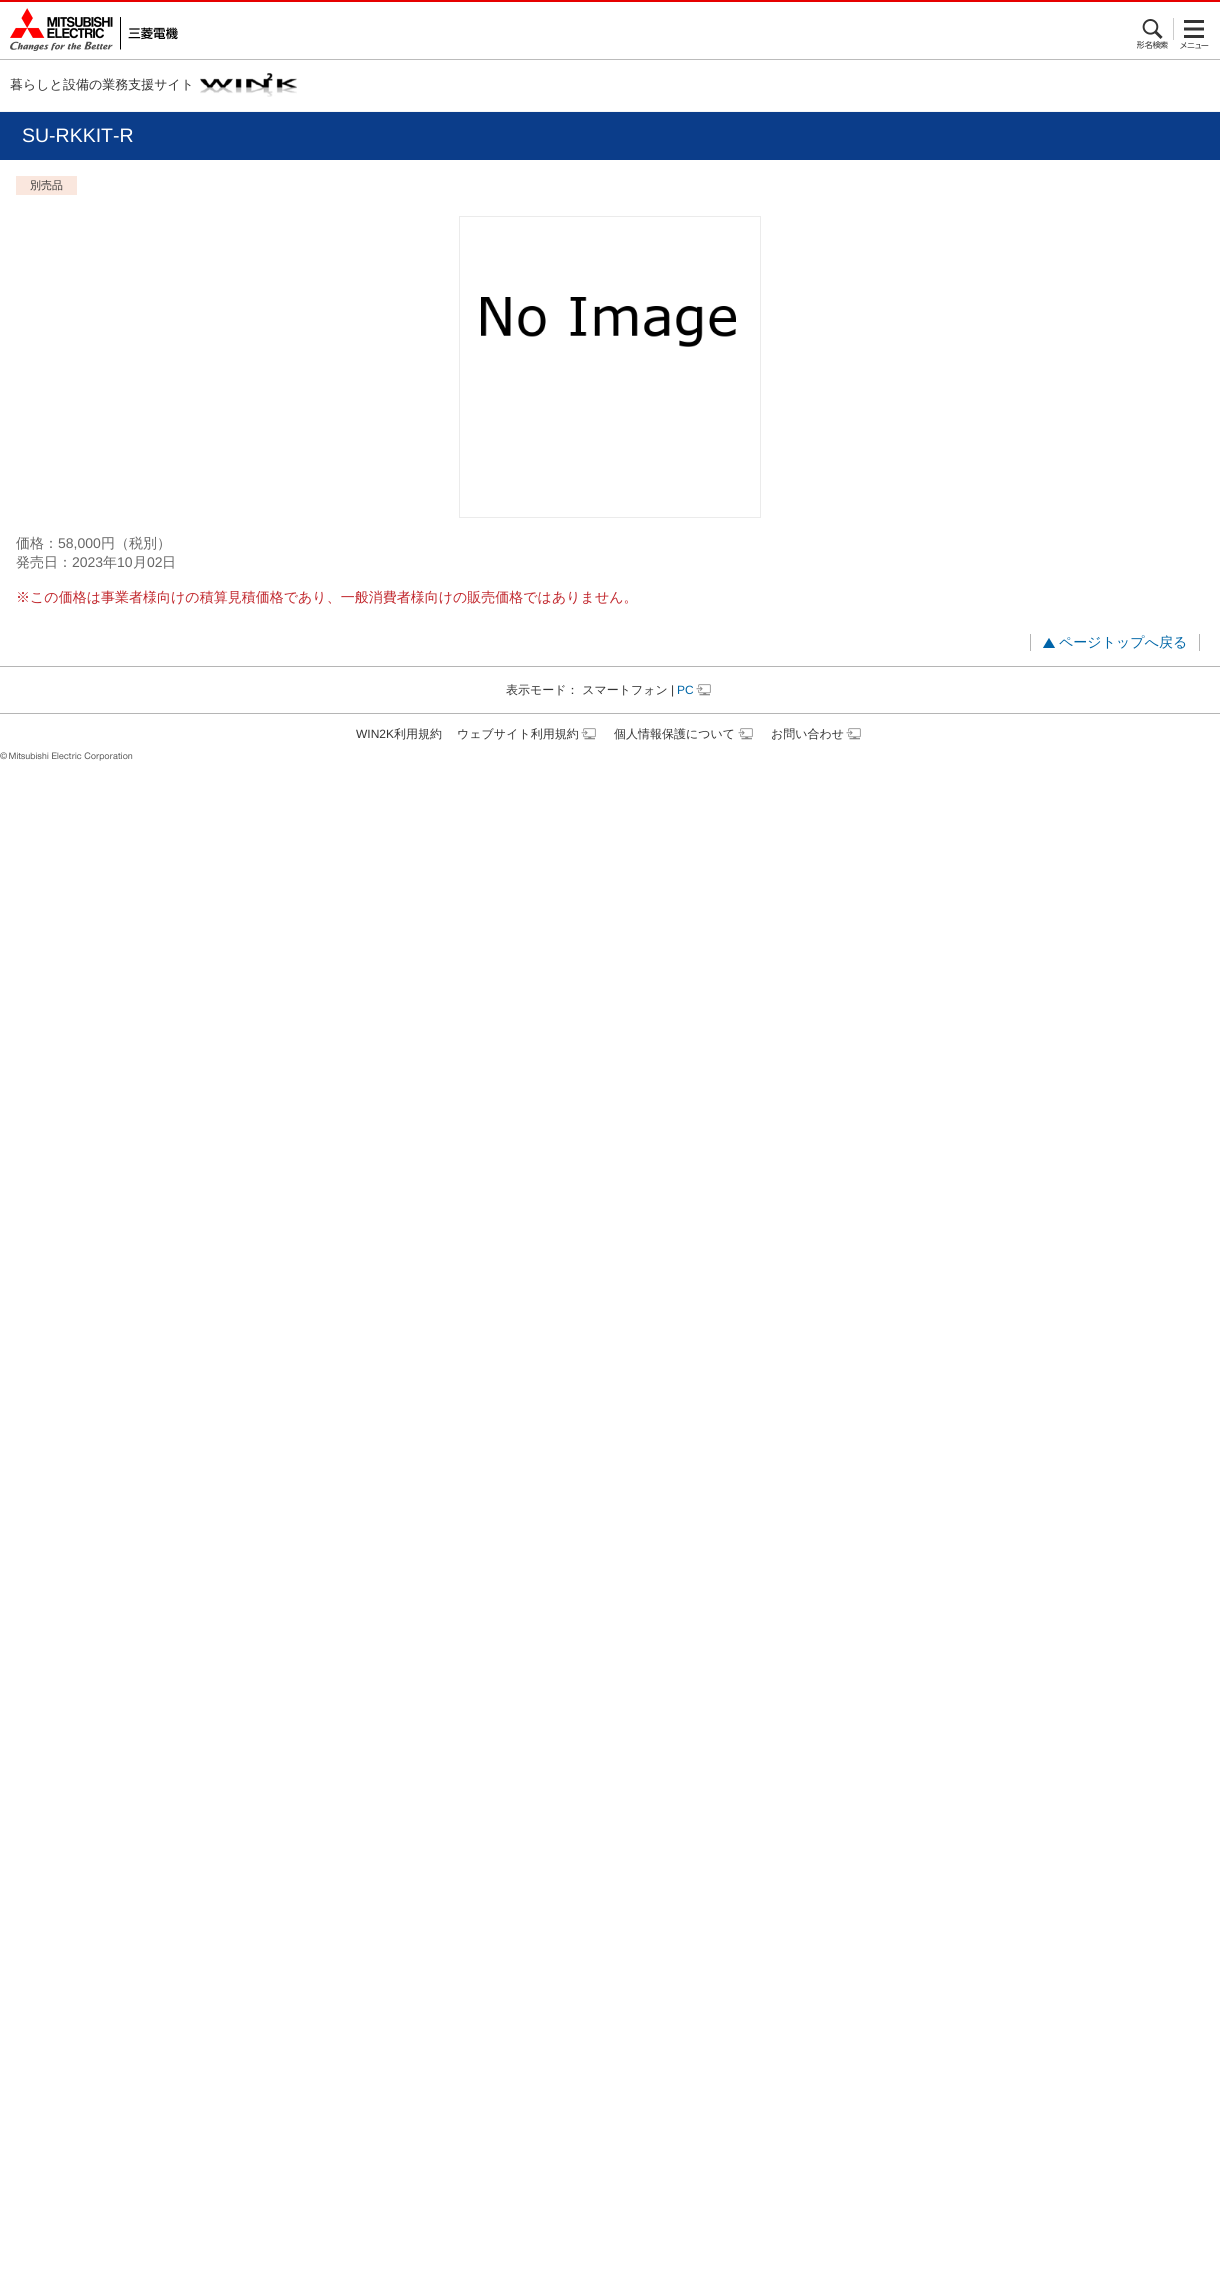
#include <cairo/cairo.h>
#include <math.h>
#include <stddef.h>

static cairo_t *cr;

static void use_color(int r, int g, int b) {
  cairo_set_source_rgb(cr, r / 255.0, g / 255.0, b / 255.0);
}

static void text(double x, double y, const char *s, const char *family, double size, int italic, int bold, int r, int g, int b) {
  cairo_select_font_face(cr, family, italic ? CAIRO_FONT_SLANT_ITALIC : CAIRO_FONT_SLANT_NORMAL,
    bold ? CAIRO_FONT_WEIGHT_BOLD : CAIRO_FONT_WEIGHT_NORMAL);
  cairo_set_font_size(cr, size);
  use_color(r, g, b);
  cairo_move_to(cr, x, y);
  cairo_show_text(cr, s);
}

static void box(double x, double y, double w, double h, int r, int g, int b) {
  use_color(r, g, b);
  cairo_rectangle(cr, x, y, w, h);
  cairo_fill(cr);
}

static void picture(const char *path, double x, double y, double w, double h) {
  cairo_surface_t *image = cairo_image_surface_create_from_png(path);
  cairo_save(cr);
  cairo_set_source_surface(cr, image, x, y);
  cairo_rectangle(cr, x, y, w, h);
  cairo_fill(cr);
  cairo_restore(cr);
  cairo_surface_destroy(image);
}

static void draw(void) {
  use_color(255, 255, 255);
  cairo_paint(cr);
  box(0, 0, 1220, 2, 230, 0, 0);
  box(0, 59, 1220, 1, 187, 187, 187);
  picture("img_01.png", 10, 8, 168, 43);
  picture("img_02.png", 1137, 18, 37, 31);
  picture("img_03.png", 1180, 20, 29, 29);
  box(0, 111, 1220, 1, 245, 245, 245);
  picture("img_04.png", 200, 73, 97, 24);
  box(0, 112, 1220, 48, 11, 61, 138);
  box(16, 176, 61, 19, 250, 231, 222);
  cairo_rectangle(cr, 459.5, 216.5, 301, 301);
  use_color(235, 235, 235);
  cairo_set_line_width(cr, 1);
  cairo_stroke(cr);
  picture("img_05.png", 481, 297, 255, 50);
  picture("img_06.png", 1043, 638, 12, 10);
  box(1199, 634, 1, 17, 181, 181, 181);
  box(1030, 634, 1, 17, 181, 181, 181);
  box(0, 666, 1220, 1, 181, 181, 181);
  picture("img_07.png", 696, 684, 15, 12);
  box(0, 713, 1220, 1, 181, 181, 181);
  picture("img_07.png", 581, 728, 15, 12);
  picture("img_07.png", 738, 728, 15, 12);
  picture("img_07.png", 846, 728, 15, 12);
  picture("img_08.png", 0, 752, 133, 9);
  text(10, 89, "暮らしと設備の業務支援サイト", "WenQuanYi Zen Hei Medium", 13, 0, 0, 51, 51, 51);
  text(22, 142, "SU-RKKIT-R", "Liberation Sans", 19.5, 0, 0, 255, 255, 255);
  text(30, 189, "別売品", "WenQuanYi Zen Hei Medium", 11, 0, 0, 51, 51, 51);
  text(16, 548, "価格：", "WenQuanYi Zen Hei Medium", 14, 0, 0, 102, 102, 102);
  text(58, 548, "58,000", "Liberation Sans", 14, 0, 0, 102, 102, 102);
  text(101, 548, "円（税別）", "WenQuanYi Zen Hei Medium", 14, 0, 0, 102, 102, 102);
  text(16, 567, "発売日：", "WenQuanYi Zen Hei Medium", 14, 0, 0, 102, 102, 102);
  text(72, 567, "2023", "Liberation Sans", 14, 0, 0, 102, 102, 102);
  text(103, 567, "年", "WenQuanYi Zen Hei Medium", 14, 0, 0, 102, 102, 102);
  text(117, 567, "10", "Liberation Sans", 14, 0, 0, 102, 102, 102);
  text(133, 567, "月", "WenQuanYi Zen Hei Medium", 14, 0, 0, 102, 102, 102);
  text(147, 567, "02", "Liberation Sans", 14, 0, 0, 102, 102, 102);
  text(162, 567, "日", "WenQuanYi Zen Hei Medium", 14, 0, 0, 102, 102, 102);
  text(16, 602, "※この価格は事業者様向けの積算見積価格であり、一般消費者様向けの販売価格ではありません。", "WenQuanYi Zen Hei Medium", 14, 0, 0, 193, 39, 45);
  text(1059, 647, "ページトップへ戻る", "WenQuanYi Zen Hei Medium", 14, 0, 0, 0, 102, 167);
  text(506, 694, "表示モード： スマートフォン", "WenQuanYi Zen Hei Medium", 12, 0, 0, 51, 51, 51);
  text(671, 694, "|", "Liberation Sans", 12, 0, 0, 51, 51, 51);
  text(677, 694, "PC", "Liberation Sans", 12, 0, 0, 0, 102, 167);
  text(356, 738, "WIN2K", "Liberation Sans", 12, 0, 0, 51, 51, 51);
  text(394, 738, "利用規約", "WenQuanYi Zen Hei Medium", 12, 0, 0, 51, 51, 51);
  text(457, 738, "ウェブサイト利用規約", "WenQuanYi Zen Hei Medium", 12, 0, 0, 51, 51, 51);
  text(614, 738, "個人情報保護について", "WenQuanYi Zen Hei Medium", 12, 0, 0, 51, 51, 51);
  text(771, 738, "お問い合わせ", "WenQuanYi Zen Hei Medium", 12, 0, 0, 51, 51, 51);
}

int main(void) {
  cairo_surface_t *surface = cairo_image_surface_create(CAIRO_FORMAT_RGB24, 1220, 2272);
  cr = cairo_create(surface);
  cairo_font_options_t *options = cairo_font_options_create();
  cairo_font_options_set_hint_metrics(options, CAIRO_HINT_METRICS_OFF);
  cairo_font_options_set_hint_style(options, CAIRO_HINT_STYLE_NONE);
  cairo_set_font_options(cr, options);
  cairo_set_miter_limit(cr, 4);
  draw();
  cairo_surface_write_to_png(surface, "out.png");
  cairo_font_options_destroy(options);
  cairo_destroy(cr);
  cairo_surface_destroy(surface);
  return 0;
}
